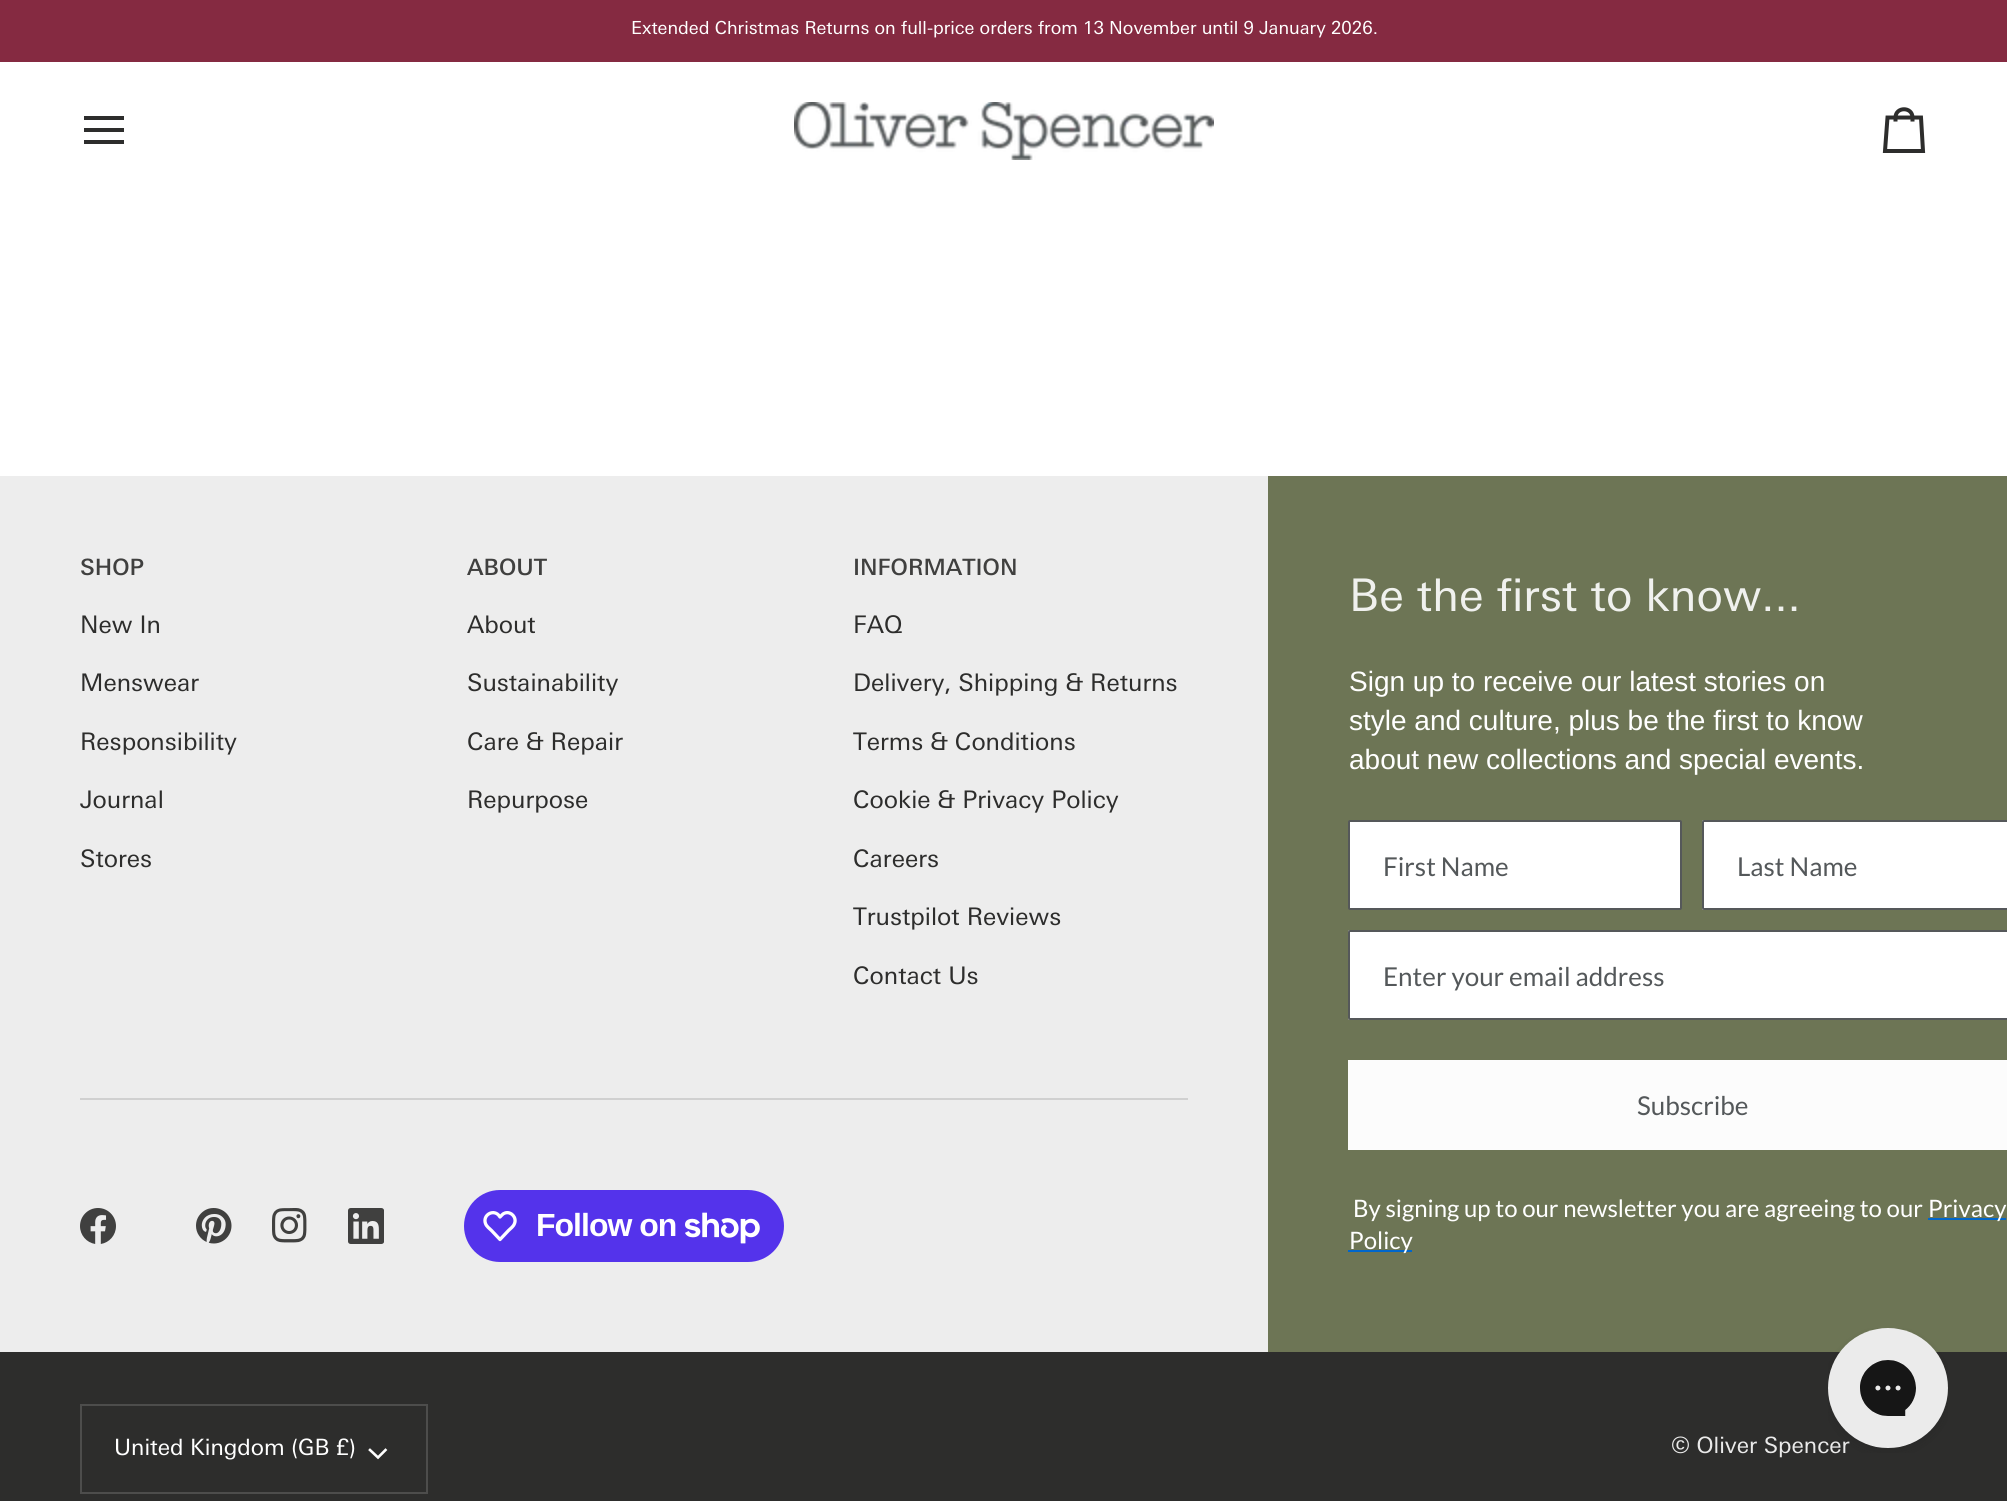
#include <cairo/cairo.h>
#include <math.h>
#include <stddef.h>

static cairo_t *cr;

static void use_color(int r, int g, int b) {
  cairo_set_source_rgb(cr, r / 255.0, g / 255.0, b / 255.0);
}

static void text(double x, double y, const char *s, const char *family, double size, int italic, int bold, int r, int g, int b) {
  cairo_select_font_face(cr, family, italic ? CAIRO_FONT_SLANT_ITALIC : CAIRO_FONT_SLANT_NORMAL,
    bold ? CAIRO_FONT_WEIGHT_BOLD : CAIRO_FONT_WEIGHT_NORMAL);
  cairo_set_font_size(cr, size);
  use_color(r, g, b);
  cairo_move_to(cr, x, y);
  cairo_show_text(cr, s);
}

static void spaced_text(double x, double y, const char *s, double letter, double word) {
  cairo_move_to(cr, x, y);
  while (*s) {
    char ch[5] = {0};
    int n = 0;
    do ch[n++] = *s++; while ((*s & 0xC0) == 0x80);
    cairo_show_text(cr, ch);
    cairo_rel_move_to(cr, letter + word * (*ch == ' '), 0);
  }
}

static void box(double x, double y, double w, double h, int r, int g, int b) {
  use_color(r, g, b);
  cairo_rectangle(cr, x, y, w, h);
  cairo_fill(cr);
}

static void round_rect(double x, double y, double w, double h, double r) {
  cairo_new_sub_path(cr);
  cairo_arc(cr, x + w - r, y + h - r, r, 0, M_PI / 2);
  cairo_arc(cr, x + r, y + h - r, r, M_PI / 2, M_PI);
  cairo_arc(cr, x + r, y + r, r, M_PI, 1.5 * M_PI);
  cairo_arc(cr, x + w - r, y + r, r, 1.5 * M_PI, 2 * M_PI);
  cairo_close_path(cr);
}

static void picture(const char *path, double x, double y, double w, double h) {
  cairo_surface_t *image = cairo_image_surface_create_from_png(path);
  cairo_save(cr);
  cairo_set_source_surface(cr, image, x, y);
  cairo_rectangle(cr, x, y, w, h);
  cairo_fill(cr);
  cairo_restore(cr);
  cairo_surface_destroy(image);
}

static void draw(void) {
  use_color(255, 255, 255);
  cairo_paint(cr);
  box(0, 0, 2007, 62, 133, 42, 65);
  cairo_new_path(cr);
  cairo_move_to(cr, 122, 118);
  cairo_line_to(cr, 86, 118);
  cairo_move_to(cr, 122, 130);
  cairo_line_to(cr, 86, 130);
  cairo_move_to(cr, 122, 142);
  cairo_line_to(cr, 86, 142);
  use_color(45, 45, 44);
  cairo_set_line_width(cr, 4);
  cairo_set_line_cap(cr, CAIRO_LINE_CAP_SQUARE);
  cairo_stroke(cr);
  picture("img_01.png", 794, 102, 420, 58);
  cairo_new_path(cr);
  cairo_move_to(cr, 1912.5, 121.5);
  cairo_line_to(cr, 1912.5, 117.5);
  cairo_line_to(cr, 1921, 117.5);
  cairo_line_to(cr, 1923, 151);
  cairo_line_to(cr, 1885, 151);
  cairo_line_to(cr, 1887.5, 117.5);
  cairo_line_to(cr, 1895.5, 117.5);
  cairo_curve_to(cr, 1895.5, 106.5, 1912.5, 106.5, 1912.5, 117.5);
  cairo_line_to(cr, 1895.5, 117.5);
  cairo_line_to(cr, 1895.5, 121.5);
  cairo_set_line_cap(cr, CAIRO_LINE_CAP_BUTT);
  cairo_stroke(cr);
  box(0, 476, 1268, 876, 237, 237, 237);
  box(80, 1098, 1108, 2, 208, 208, 208);
  picture("img_02.png", 80, 1208, 36, 36);
  picture("img_03.png", 196, 1208, 36, 36);
  picture("img_04.png", 272, 1208, 35, 35);
  picture("img_05.png", 348, 1208, 36, 36);
  use_color(84, 51, 235);
  round_rect(464, 1190, 320, 72, 36);
  cairo_fill(cr);
  cairo_new_path(cr);
  cairo_move_to(cr, 498.5, 1215);
  cairo_line_to(cr, 500, 1217);
  cairo_curve_to(cr, 501.5, 1215.5, 503, 1213.5, 505, 1213);
  cairo_curve_to(cr, 511, 1211, 517, 1217.5, 514.5, 1223.5);
  cairo_curve_to(cr, 513.5, 1226.5, 510.5, 1228.5, 508.5, 1230.5);
  cairo_line_to(cr, 500, 1239.5);
  cairo_line_to(cr, 491.5, 1230.5);
  cairo_curve_to(cr, 489.5, 1228.5, 486.5, 1226.5, 485.5, 1223.5);
  cairo_curve_to(cr, 482.5, 1215.5, 492.5, 1209, 498.5, 1215);
  cairo_close_path(cr);
  use_color(255, 255, 255);
  cairo_set_line_width(cr, 3.3);
  cairo_set_line_join(cr, CAIRO_LINE_JOIN_ROUND);
  cairo_stroke(cr);
  picture("img_06.png", 685, 1212, 75, 32);
  box(1268, 476, 739, 876, 109, 117, 85);
  use_color(255, 255, 255);
  round_rect(1349, 821, 332, 88, 1);
  cairo_fill_preserve(cr);
  use_color(85, 88, 90);
  cairo_set_line_width(cr, 2);
  cairo_set_line_join(cr, CAIRO_LINE_JOIN_MITER);
  cairo_stroke(cr);
  use_color(255, 255, 255);
  cairo_new_path(cr);
  cairo_move_to(cr, 1704, 820);
  cairo_line_to(cr, 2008, 820);
  cairo_line_to(cr, 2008, 910);
  cairo_line_to(cr, 1704, 910);
  cairo_curve_to(cr, 1703, 910, 1702, 909, 1702, 908);
  cairo_line_to(cr, 1702, 822);
  cairo_curve_to(cr, 1702, 821, 1703, 820, 1704, 820);
  cairo_close_path(cr);
  cairo_fill(cr);
  round_rect(1703, 821, 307, 88, 1);
  use_color(85, 88, 90);
  cairo_stroke(cr);
  use_color(255, 255, 255);
  cairo_new_path(cr);
  cairo_move_to(cr, 1350, 930);
  cairo_line_to(cr, 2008, 930);
  cairo_line_to(cr, 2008, 1020);
  cairo_line_to(cr, 1350, 1020);
  cairo_curve_to(cr, 1349, 1020, 1348, 1019, 1348, 1018);
  cairo_line_to(cr, 1348, 932);
  cairo_curve_to(cr, 1348, 931, 1349, 930, 1350, 930);
  cairo_close_path(cr);
  cairo_fill(cr);
  round_rect(1349, 931, 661, 88, 1);
  use_color(85, 88, 90);
  cairo_stroke(cr);
  box(1348, 1060, 659, 90, 252, 252, 252);
  box(1928, 1218, 78, 2, 0, 102, 204);
  box(1348, 1250, 64, 2, 0, 102, 204);
  box(0, 1352, 2007, 149, 45, 45, 44);
  cairo_rectangle(cr, 81, 1405, 346, 88);
  use_color(77, 77, 76);
  cairo_stroke(cr);
  cairo_new_path(cr);
  cairo_move_to(cr, 370, 1450);
  cairo_line_to(cr, 378, 1457.5);
  cairo_line_to(cr, 385.5, 1450);
  use_color(255, 255, 255);
  cairo_set_line_width(cr, 2.6);
  cairo_set_line_cap(cr, CAIRO_LINE_CAP_SQUARE);
  cairo_stroke(cr);
  text(631, 34, "Extended Christmas Returns on full-price orders from 13 November until 9 January 2026.", "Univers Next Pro", 18, 0, 0, 255, 255, 255);
  text(80, 575, "SHOP", "Univers Next Pro Medium", 22.5, 0, 0, 64, 64, 63);
  text(80, 633, "New In", "Univers Next Pro", 24.25, 0, 0, 45, 45, 44);
  text(80, 691, "Menswear", "Univers Next Pro", 24.25, 0, 0, 45, 45, 44);
  text(80, 750, "Responsibility", "Univers Next Pro", 24.25, 0, 0, 45, 45, 44);
  text(80, 808, "Journal", "Univers Next Pro", 24.25, 0, 0, 45, 45, 44);
  text(80, 867, "Stores", "Univers Next Pro", 24.25, 0, 0, 45, 45, 44);
  text(467, 575, "ABOUT", "Univers Next Pro Medium", 22.5, 0, 0, 64, 64, 63);
  text(467, 633, "About", "Univers Next Pro", 24.25, 0, 0, 45, 45, 44);
  text(467, 691, "Sustainability", "Univers Next Pro", 24.25, 0, 0, 45, 45, 44);
  text(467, 750, "Care & Repair", "Univers Next Pro", 24.25, 0, 0, 45, 45, 44);
  text(467, 808, "Repurpose", "Univers Next Pro", 24.25, 0, 0, 45, 45, 44);
  text(853, 575, "INFORMATION", "Univers Next Pro Medium", 22.5, 0, 0, 64, 64, 63);
  text(853, 633, "FAQ", "Univers Next Pro", 24.25, 0, 0, 45, 45, 44);
  text(853, 691, "Delivery, Shipping & Returns", "Univers Next Pro", 24.25, 0, 0, 45, 45, 44);
  text(853, 750, "Terms & Conditions", "Univers Next Pro", 24.25, 0, 0, 45, 45, 44);
  text(853, 808, "Cookie & Privacy Policy", "Univers Next Pro", 24.25, 0, 0, 45, 45, 44);
  text(853, 867, "Careers", "Univers Next Pro", 24.25, 0, 0, 45, 45, 44);
  text(853, 925, "Trustpilot Reviews", "Univers Next Pro", 24.25, 0, 0, 45, 45, 44);
  text(853, 984, "Contact Us", "Univers Next Pro", 24.25, 0, 0, 45, 45, 44);
  cairo_select_font_face(cr, "Liberation Sans", CAIRO_FONT_SLANT_NORMAL, CAIRO_FONT_WEIGHT_BOLD);
  cairo_set_font_size(cr, 32);
  use_color(255, 255, 255);
  spaced_text(536, 1236, "Follow on", -1, 0);
  text(1349, 611, "Be the first to know...", "Univers Next Pro", 45, 0, 0, 240, 241, 238);
  text(1349, 691, "Sign up to receive our latest stories on", "Liberation Sans", 28, 0, 0, 255, 255, 255);
  text(1349, 730, "style and culture, plus be the first to know", "Liberation Sans", 28, 0, 0, 255, 255, 255);
  text(1349, 769, "about new collections and special events.", "Liberation Sans", 28, 0, 0, 255, 255, 255);
  text(1383, 876, "First Name", "Lato", 26, 0, 0, 84, 88, 90);
  text(1737, 876, "Last Name", "Lato", 26, 0, 0, 84, 88, 90);
  text(1383, 986, "Enter your email address", "Lato", 26, 0, 0, 84, 88, 90);
  text(1637, 1115, "Subscribe", "Lato", 26, 0, 0, 84, 88, 90);
  text(1353, 1217, "By signing up to our newsletter you are agreeing to our", "Lato", 24, 0, 0, 255, 255, 255);
  text(1928, 1217, "Privacy", "Lato", 24, 0, 0, 255, 255, 255);
  text(1349, 1249, "Policy", "Lato", 24, 0, 0, 255, 255, 255);
  text(114, 1455, "United Kingdom (GB £)", "Univers Next Pro", 22.5, 0, 0, 255, 255, 255);
  text(1671, 1453, "© Oliver Spencer", "Univers Next Pro", 22.5, 0, 0, 234, 234, 234);
  picture("img_07.png", 1828, 1328, 120, 125);
}

int main(void) {
  cairo_surface_t *surface = cairo_image_surface_create(CAIRO_FORMAT_RGB24, 2007, 1501);
  cr = cairo_create(surface);
  cairo_font_options_t *options = cairo_font_options_create();
  cairo_font_options_set_hint_metrics(options, CAIRO_HINT_METRICS_OFF);
  cairo_font_options_set_hint_style(options, CAIRO_HINT_STYLE_NONE);
  cairo_set_font_options(cr, options);
  cairo_set_miter_limit(cr, 4);
  draw();
  cairo_surface_write_to_png(surface, "out.png");
  cairo_font_options_destroy(options);
  cairo_destroy(cr);
  cairo_surface_destroy(surface);
  return 0;
}
